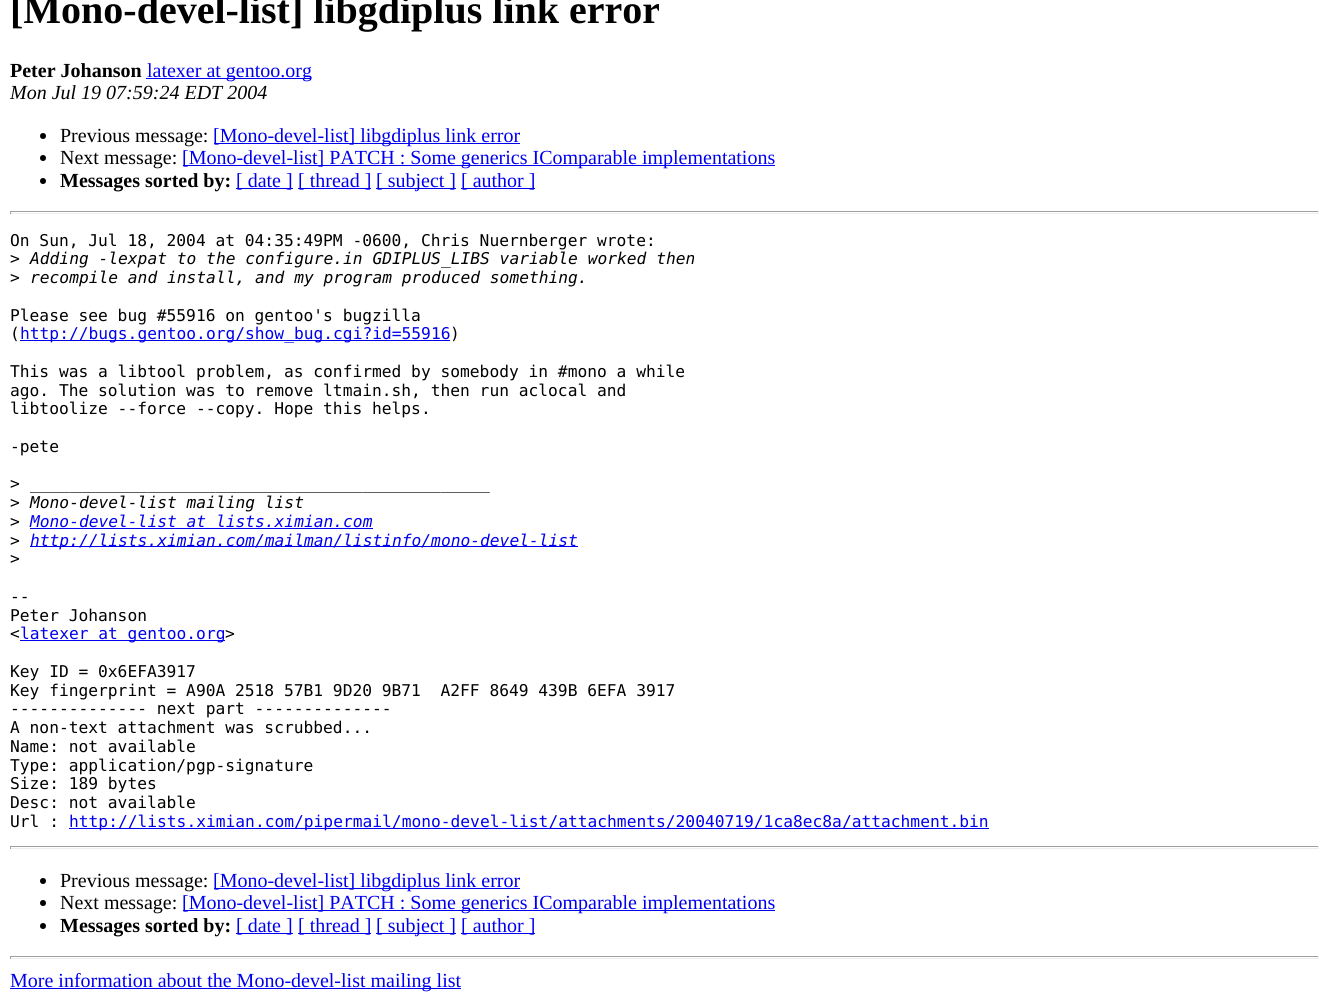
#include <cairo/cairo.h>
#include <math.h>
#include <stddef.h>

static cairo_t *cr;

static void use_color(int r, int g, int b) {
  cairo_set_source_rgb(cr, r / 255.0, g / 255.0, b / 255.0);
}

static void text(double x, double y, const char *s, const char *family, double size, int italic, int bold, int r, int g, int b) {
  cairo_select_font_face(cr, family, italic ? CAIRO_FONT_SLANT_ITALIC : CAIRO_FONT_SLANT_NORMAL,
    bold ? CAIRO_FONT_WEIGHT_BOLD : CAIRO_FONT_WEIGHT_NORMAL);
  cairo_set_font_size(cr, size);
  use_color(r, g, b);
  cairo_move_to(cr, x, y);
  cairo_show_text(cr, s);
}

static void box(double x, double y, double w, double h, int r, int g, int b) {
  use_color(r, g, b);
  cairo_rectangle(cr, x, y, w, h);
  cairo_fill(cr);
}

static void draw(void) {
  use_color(255, 255, 255);
  cairo_paint(cr);
  box(146, 78, 165, 1, 0, 0, 238);
  use_color(0, 0, 0);
  cairo_arc(cr, 43, 136, 3, 0, 2 * M_PI);
  cairo_fill(cr);
  box(214, 143, 306, 1, 0, 0, 238);
  use_color(0, 0, 0);
  cairo_arc(cr, 43, 158, 3, 0, 2 * M_PI);
  cairo_fill(cr);
  box(183, 165, 592, 1, 0, 0, 238);
  use_color(0, 0, 0);
  cairo_arc(cr, 43, 181, 3, 0, 2 * M_PI);
  cairo_fill(cr);
  box(236, 188, 57, 1, 0, 0, 238);
  box(298, 188, 73, 1, 0, 0, 238);
  box(376, 188, 80, 1, 0, 0, 238);
  box(461, 188, 74, 1, 0, 0, 238);
  box(10, 211, 1309, 1, 159, 159, 159);
  box(1318, 211, 1, 3, 238, 238, 238);
  box(10, 213, 1309, 1, 238, 238, 238);
  box(10, 211, 1, 3, 159, 159, 159);
  box(20, 340, 430, 1, 0, 0, 238);
  box(30, 528, 343, 1, 0, 0, 238);
  box(30, 546, 548, 1, 0, 0, 238);
  box(20, 640, 205, 1, 0, 0, 238);
  box(69, 828, 920, 1, 0, 0, 238);
  box(10, 846, 1309, 1, 159, 159, 159);
  box(1318, 846, 1, 3, 238, 238, 238);
  box(10, 848, 1309, 1, 238, 238, 238);
  box(10, 846, 1, 3, 159, 159, 159);
  use_color(0, 0, 0);
  cairo_arc(cr, 43, 881, 3, 0, 2 * M_PI);
  cairo_fill(cr);
  box(214, 888, 306, 1, 0, 0, 238);
  use_color(0, 0, 0);
  cairo_arc(cr, 43, 903, 3, 0, 2 * M_PI);
  cairo_fill(cr);
  box(183, 910, 592, 1, 0, 0, 238);
  use_color(0, 0, 0);
  cairo_arc(cr, 43, 926, 3, 0, 2 * M_PI);
  cairo_fill(cr);
  box(236, 933, 57, 1, 0, 0, 238);
  box(298, 933, 73, 1, 0, 0, 238);
  box(376, 933, 80, 1, 0, 0, 238);
  box(461, 933, 74, 1, 0, 0, 238);
  box(10, 956, 1309, 1, 159, 159, 159);
  box(1318, 956, 1, 3, 238, 238, 238);
  box(10, 958, 1309, 1, 238, 238, 238);
  box(10, 956, 1, 3, 159, 159, 159);
  box(10, 988, 451, 1, 0, 0, 238);
  text(10, 23, "[Mono-devel-list] libgdiplus link error", "Liberation Serif", 40, 0, 1, 0, 0, 0);
  text(10, 77, "Peter Johanson", "Liberation Serif", 20, 0, 1, 0, 0, 0);
  text(147, 77, "latexer at gentoo.org", "Liberation Serif", 20, 0, 0, 0, 0, 238);
  text(10, 99, "Mon Jul 19 07:59:24 EDT 2004", "Liberation Serif", 20, 1, 0, 0, 0, 0);
  text(60, 142, "Previous message:", "Liberation Serif", 20, 0, 0, 0, 0, 0);
  text(213, 142, "[Mono-devel-list] libgdiplus link error", "Liberation Serif", 20, 0, 0, 0, 0, 238);
  text(60, 164, "Next message:", "Liberation Serif", 20, 0, 0, 0, 0, 0);
  text(182, 164, "[Mono-devel-list] PATCH : Some generics IComparable implementations", "Liberation Serif", 20, 0, 0, 0, 0, 238);
  text(60, 187, "Messages sorted by:", "Liberation Serif", 20, 0, 1, 0, 0, 0);
  text(236, 187, "[ date ]", "Liberation Serif", 20, 0, 0, 0, 0, 238);
  text(298, 187, "[ thread ]", "Liberation Serif", 20, 0, 0, 0, 0, 238);
  text(376, 187, "[ subject ]", "Liberation Serif", 20, 0, 0, 0, 0, 238);
  text(461, 187, "[ author ]", "Liberation Serif", 20, 0, 0, 0, 0, 238);
  text(10, 246, "On Sun, Jul 18, 2004 at 04:35:49PM -0600, Chris Nuernberger wrote:", "DejaVu Sans Mono", 16.25, 0, 0, 0, 0, 0);
  text(10, 264, ">", "DejaVu Sans Mono", 16.25, 0, 0, 0, 0, 0);
  text(30, 264, "Adding -lexpat to the configure.in GDIPLUS_LIBS variable worked then", "DejaVu Sans Mono", 16.25, 1, 0, 0, 0, 0);
  text(10, 283, ">", "DejaVu Sans Mono", 16.25, 0, 0, 0, 0, 0);
  text(30, 283, "recompile and install, and my program produced something.", "DejaVu Sans Mono", 16.25, 1, 0, 0, 0, 0);
  text(10, 321, "Please see bug #55916 on gentoo's bugzilla", "DejaVu Sans Mono", 16.25, 0, 0, 0, 0, 0);
  text(10, 339, "(", "DejaVu Sans Mono", 16.25, 0, 0, 0, 0, 0);
  text(20, 339, "http://bugs.gentoo.org/show_bug.cgi?id=55916", "DejaVu Sans Mono", 16.25, 0, 0, 0, 0, 238);
  text(450, 339, ")", "DejaVu Sans Mono", 16.25, 0, 0, 0, 0, 0);
  text(10, 377, "This was a libtool problem, as confirmed by somebody in #mono a while", "DejaVu Sans Mono", 16.25, 0, 0, 0, 0, 0);
  text(10, 396, "ago. The solution was to remove ltmain.sh, then run aclocal and", "DejaVu Sans Mono", 16.25, 0, 0, 0, 0, 0);
  text(10, 414, "libtoolize --force --copy. Hope this helps.", "DejaVu Sans Mono", 16.25, 0, 0, 0, 0, 0);
  text(10, 452, "-pete", "DejaVu Sans Mono", 16.25, 0, 0, 0, 0, 0);
  text(10, 489, ">", "DejaVu Sans Mono", 16.25, 0, 0, 0, 0, 0);
  text(30, 489, "_______________________________________________", "DejaVu Sans Mono", 16.25, 1, 0, 0, 0, 0);
  text(10, 508, ">", "DejaVu Sans Mono", 16.25, 0, 0, 0, 0, 0);
  text(30, 508, "Mono-devel-list mailing list", "DejaVu Sans Mono", 16.25, 1, 0, 0, 0, 0);
  text(10, 527, ">", "DejaVu Sans Mono", 16.25, 0, 0, 0, 0, 0);
  text(30, 527, "Mono-devel-list at lists.ximian.com", "DejaVu Sans Mono", 16.25, 1, 0, 0, 0, 238);
  text(10, 546, ">", "DejaVu Sans Mono", 16.25, 0, 0, 0, 0, 0);
  text(30, 546, "http://lists.ximian.com/mailman/listinfo/mono-devel-list", "DejaVu Sans Mono", 16.25, 1, 0, 0, 0, 238);
  text(10, 564, ">", "DejaVu Sans Mono", 16.25, 0, 0, 0, 0, 0);
  text(10, 602, "--", "DejaVu Sans Mono", 16.25, 0, 0, 0, 0, 0);
  text(10, 621, "Peter Johanson", "DejaVu Sans Mono", 16.25, 0, 0, 0, 0, 0);
  text(10, 639, "<", "DejaVu Sans Mono", 16.25, 0, 0, 0, 0, 0);
  text(20, 639, "latexer at gentoo.org", "DejaVu Sans Mono", 16.25, 0, 0, 0, 0, 238);
  text(225, 639, ">", "DejaVu Sans Mono", 16.25, 0, 0, 0, 0, 0);
  text(10, 677, "Key ID = 0x6EFA3917", "DejaVu Sans Mono", 16.25, 0, 0, 0, 0, 0);
  text(10, 696, "Key fingerprint = A90A 2518 57B1 9D20 9B71  A2FF 8649 439B 6EFA 3917", "DejaVu Sans Mono", 16.25, 0, 0, 0, 0, 0);
  text(10, 714, "-------------- next part --------------", "DejaVu Sans Mono", 16.25, 0, 0, 0, 0, 0);
  text(10, 733, "A non-text attachment was scrubbed...", "DejaVu Sans Mono", 16.25, 0, 0, 0, 0, 0);
  text(10, 752, "Name: not available", "DejaVu Sans Mono", 16.25, 0, 0, 0, 0, 0);
  text(10, 771, "Type: application/pgp-signature", "DejaVu Sans Mono", 16.25, 0, 0, 0, 0, 0);
  text(10, 789, "Size: 189 bytes", "DejaVu Sans Mono", 16.25, 0, 0, 0, 0, 0);
  text(10, 808, "Desc: not available", "DejaVu Sans Mono", 16.25, 0, 0, 0, 0, 0);
  text(10, 827, "Url :", "DejaVu Sans Mono", 16.25, 0, 0, 0, 0, 0);
  text(69, 827, "http://lists.ximian.com/pipermail/mono-devel-list/attachments/20040719/1ca8ec8a/attachment.bin", "DejaVu Sans Mono", 16.25, 0, 0, 0, 0, 238);
  text(60, 887, "Previous message:", "Liberation Serif", 20, 0, 0, 0, 0, 0);
  text(213, 887, "[Mono-devel-list] libgdiplus link error", "Liberation Serif", 20, 0, 0, 0, 0, 238);
  text(60, 909, "Next message:", "Liberation Serif", 20, 0, 0, 0, 0, 0);
  text(182, 909, "[Mono-devel-list] PATCH : Some generics IComparable implementations", "Liberation Serif", 20, 0, 0, 0, 0, 238);
  text(60, 932, "Messages sorted by:", "Liberation Serif", 20, 0, 1, 0, 0, 0);
  text(236, 932, "[ date ]", "Liberation Serif", 20, 0, 0, 0, 0, 238);
  text(298, 932, "[ thread ]", "Liberation Serif", 20, 0, 0, 0, 0, 238);
  text(376, 932, "[ subject ]", "Liberation Serif", 20, 0, 0, 0, 0, 238);
  text(461, 932, "[ author ]", "Liberation Serif", 20, 0, 0, 0, 0, 238);
  text(10, 987, "More information about the Mono-devel-list mailing list", "Liberation Serif", 20, 0, 0, 0, 0, 238);
}

int main(void) {
  cairo_surface_t *surface = cairo_image_surface_create(CAIRO_FORMAT_RGB24, 1328, 998);
  cr = cairo_create(surface);
  cairo_font_options_t *options = cairo_font_options_create();
  cairo_font_options_set_hint_metrics(options, CAIRO_HINT_METRICS_OFF);
  cairo_font_options_set_hint_style(options, CAIRO_HINT_STYLE_NONE);
  cairo_set_font_options(cr, options);
  cairo_set_miter_limit(cr, 4);
  draw();
  cairo_surface_write_to_png(surface, "out.png");
  cairo_font_options_destroy(options);
  cairo_destroy(cr);
  cairo_surface_destroy(surface);
  return 0;
}
